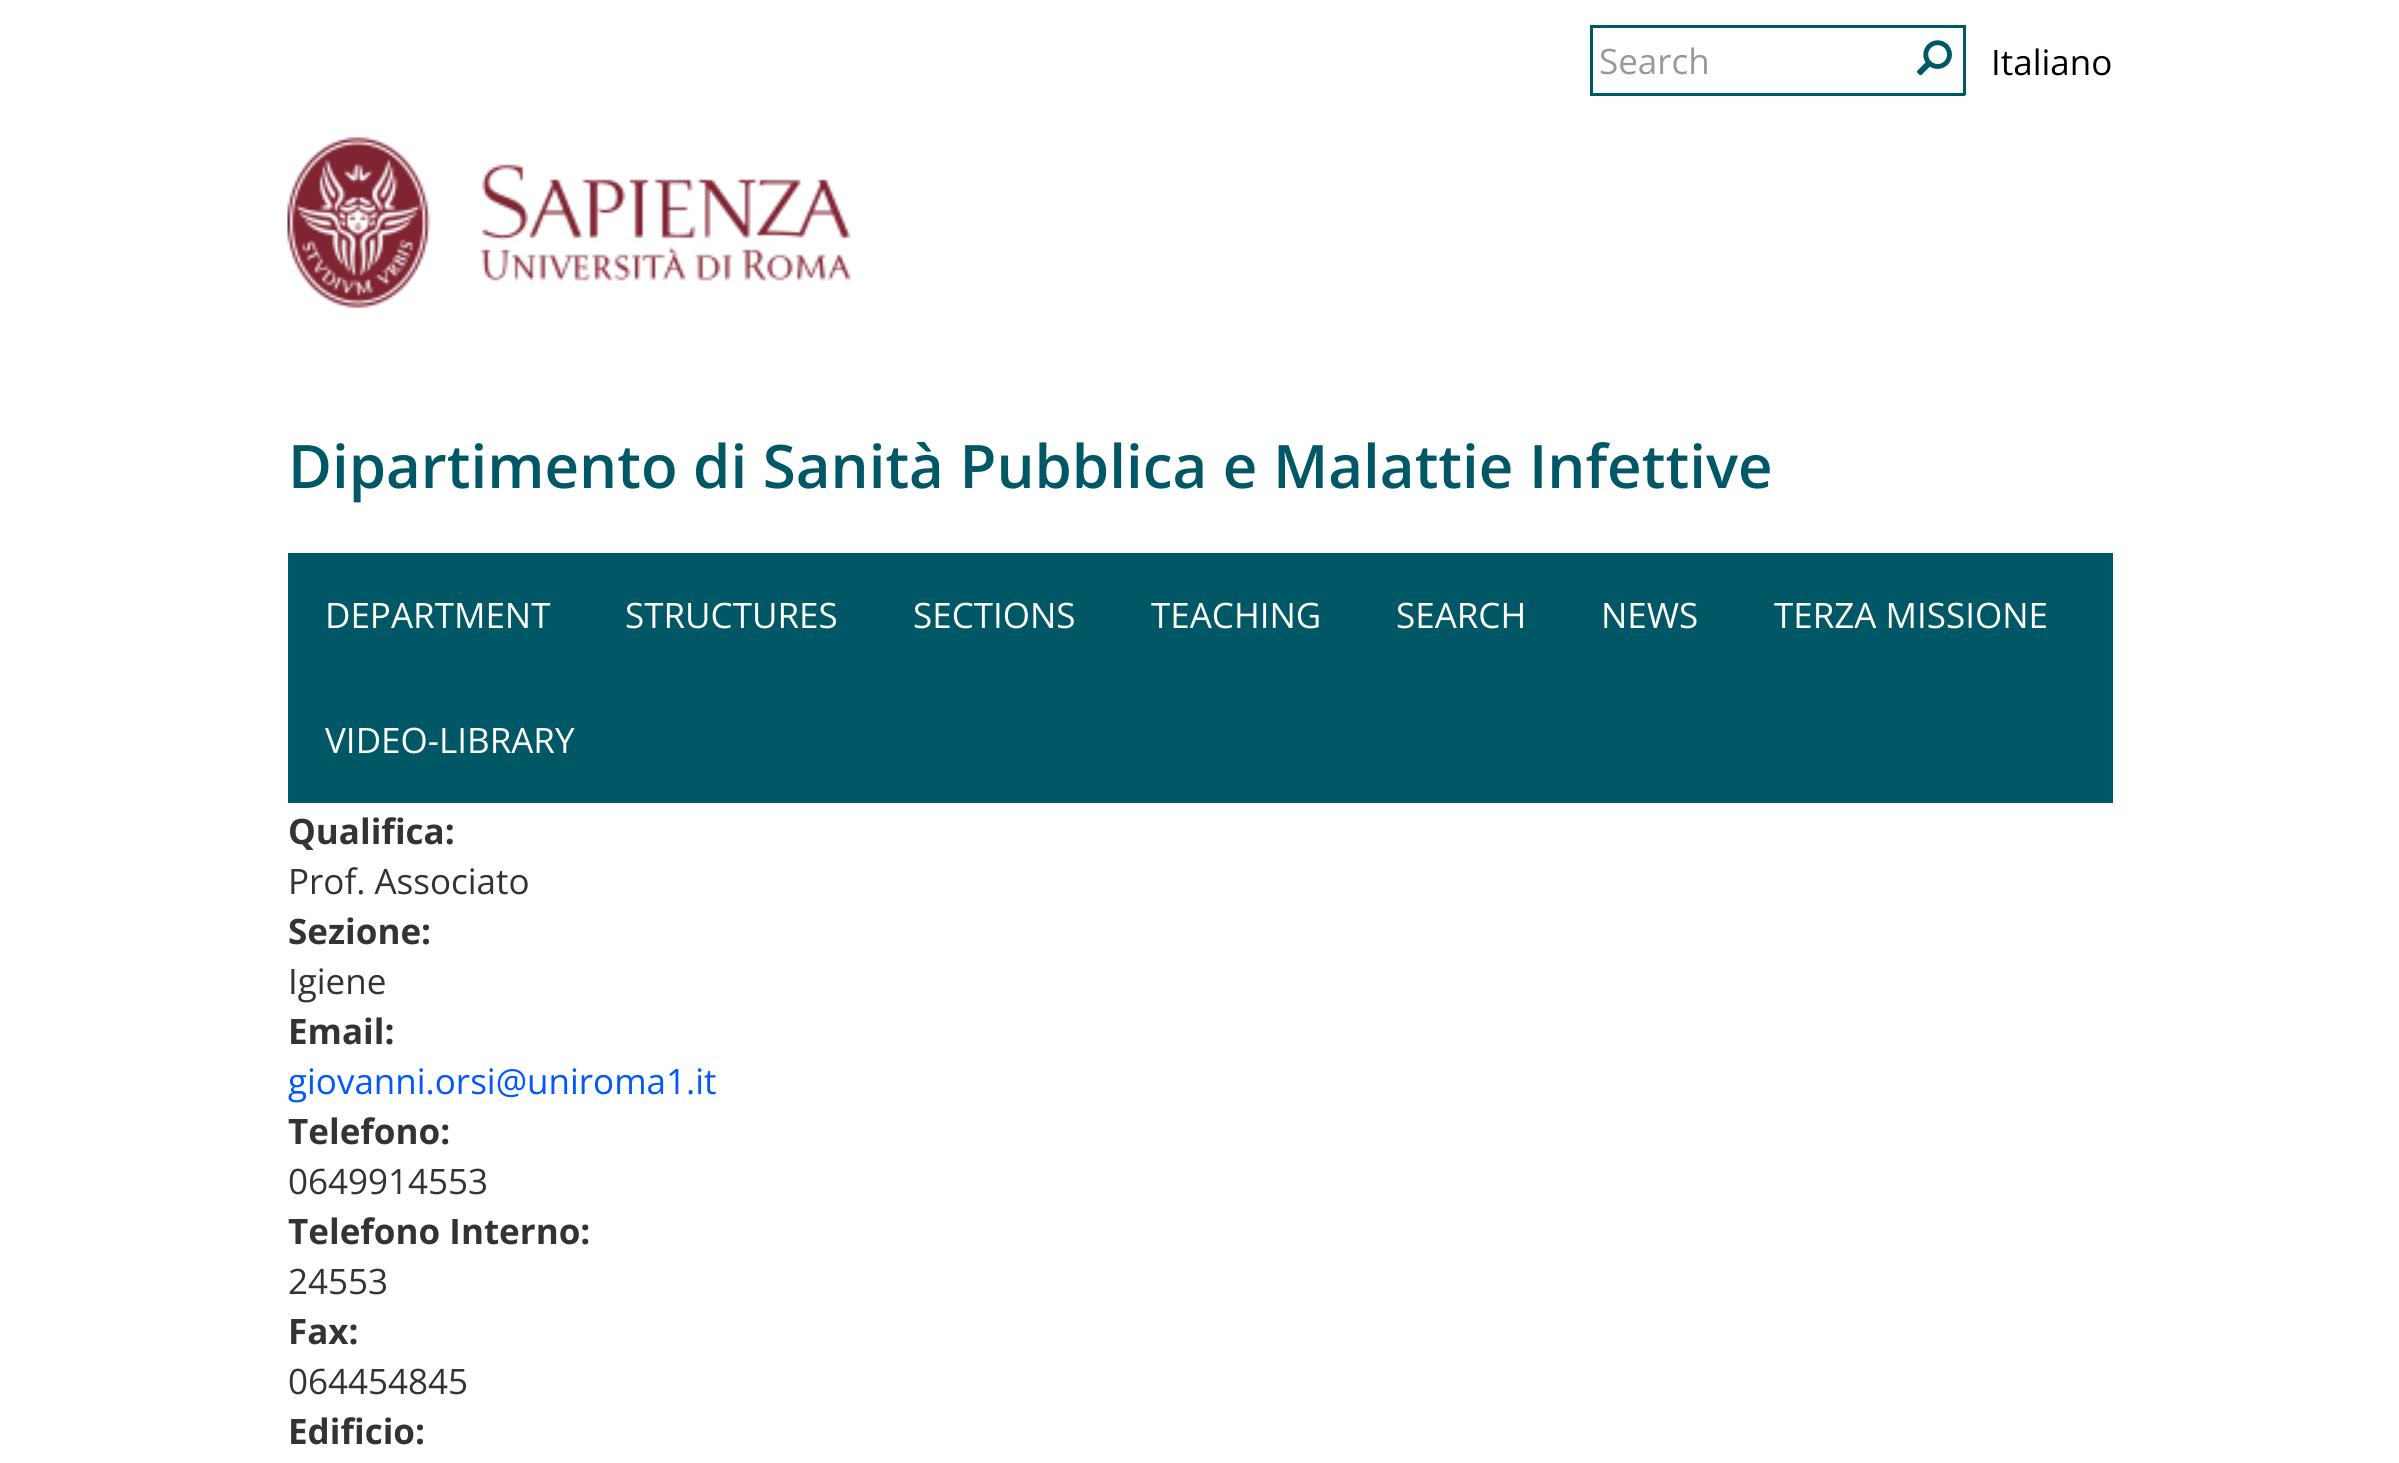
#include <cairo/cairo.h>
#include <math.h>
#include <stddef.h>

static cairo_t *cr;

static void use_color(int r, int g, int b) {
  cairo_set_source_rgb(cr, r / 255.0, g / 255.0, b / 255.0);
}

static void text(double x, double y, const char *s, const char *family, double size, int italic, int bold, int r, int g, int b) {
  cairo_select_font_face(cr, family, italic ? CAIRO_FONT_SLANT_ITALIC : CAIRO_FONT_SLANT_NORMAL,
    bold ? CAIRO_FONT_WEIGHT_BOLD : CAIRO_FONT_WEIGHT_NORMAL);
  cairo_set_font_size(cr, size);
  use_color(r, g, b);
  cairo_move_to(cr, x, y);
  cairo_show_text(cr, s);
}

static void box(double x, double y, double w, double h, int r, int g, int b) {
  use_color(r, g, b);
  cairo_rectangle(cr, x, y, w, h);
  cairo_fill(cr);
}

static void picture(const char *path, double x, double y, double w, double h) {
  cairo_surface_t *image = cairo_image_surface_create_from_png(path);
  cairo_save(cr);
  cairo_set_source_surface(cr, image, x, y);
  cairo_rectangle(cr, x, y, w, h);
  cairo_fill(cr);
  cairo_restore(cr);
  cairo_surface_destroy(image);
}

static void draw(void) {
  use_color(255, 255, 255);
  cairo_paint(cr);
  box(1590, 25, 375, 3, 0, 88, 102);
  box(1590, 93, 315, 3, 0, 88, 102);
  box(1590, 25, 3, 70, 0, 88, 102);
  box(1963, 25, 3, 70, 0, 88, 102);
  box(1903, 93, 62, 3, 0, 88, 102);
  picture("img_01.png", 1916, 40, 36, 36);
  picture("img_02.png", 287, 136, 564, 173);
  box(288, 553, 1825, 250, 0, 88, 102);
  text(1599, 74, "Search", "Open Sans", 35, 0, 0, 153, 153, 153);
  text(1991, 75, "Italiano", "Open Sans", 35, 0, 0, 0, 0, 0);
  text(288, 488, "Dipartimento di Sanità Pubblica e Malattie Infettive", "Open Sans SemiBold", 60, 0, 0, 0, 88, 102);
  text(325, 628, "DEPARTMENT", "Open Sans", 35, 0, 0, 255, 255, 255);
  text(625, 628, "STRUCTURES", "Open Sans", 35, 0, 0, 255, 255, 255);
  text(913, 628, "SECTIONS", "Open Sans", 35, 0, 0, 255, 255, 255);
  text(1151, 628, "TEACHING", "Open Sans", 35, 0, 0, 255, 255, 255);
  text(1396, 628, "SEARCH", "Open Sans", 35, 0, 0, 255, 255, 255);
  text(1601, 628, "NEWS", "Open Sans", 35, 0, 0, 255, 255, 255);
  text(1774, 628, "TERZA MISSIONE", "Open Sans", 35, 0, 0, 255, 255, 255);
  text(325, 753, "VIDEO-LIBRARY", "Open Sans", 35, 0, 0, 255, 255, 255);
  text(288, 844, "Qualifica:", "Open Sans", 35, 0, 1, 51, 51, 51);
  text(288, 894, "Prof. Associato", "Open Sans", 35, 0, 0, 51, 51, 51);
  text(288, 944, "Sezione:", "Open Sans", 35, 0, 1, 51, 51, 51);
  text(288, 994, "Igiene", "Open Sans", 35, 0, 0, 51, 51, 51);
  text(288, 1044, "Email:", "Open Sans", 35, 0, 1, 51, 51, 51);
  text(288, 1094, "giovanni.orsi@uniroma1.it", "Open Sans", 35, 0, 0, 0, 88, 255);
  text(288, 1144, "Telefono:", "Open Sans", 35, 0, 1, 51, 51, 51);
  text(288, 1194, "0649914553", "Open Sans", 35, 0, 0, 51, 51, 51);
  text(288, 1244, "Telefono Interno:", "Open Sans", 35, 0, 1, 51, 51, 51);
  text(288, 1294, "24553", "Open Sans", 35, 0, 0, 51, 51, 51);
  text(288, 1344, "Fax:", "Open Sans", 35, 0, 1, 51, 51, 51);
  text(288, 1394, "064454845", "Open Sans", 35, 0, 0, 51, 51, 51);
  text(288, 1444, "Edificio:", "Open Sans", 35, 0, 1, 51, 51, 51);
}

int main(void) {
  cairo_surface_t *surface = cairo_image_surface_create(CAIRO_FORMAT_RGB24, 2399, 1463);
  cr = cairo_create(surface);
  cairo_font_options_t *options = cairo_font_options_create();
  cairo_font_options_set_hint_metrics(options, CAIRO_HINT_METRICS_OFF);
  cairo_font_options_set_hint_style(options, CAIRO_HINT_STYLE_NONE);
  cairo_set_font_options(cr, options);
  cairo_set_miter_limit(cr, 4);
  draw();
  cairo_surface_write_to_png(surface, "out.png");
  cairo_font_options_destroy(options);
  cairo_destroy(cr);
  cairo_surface_destroy(surface);
  return 0;
}
